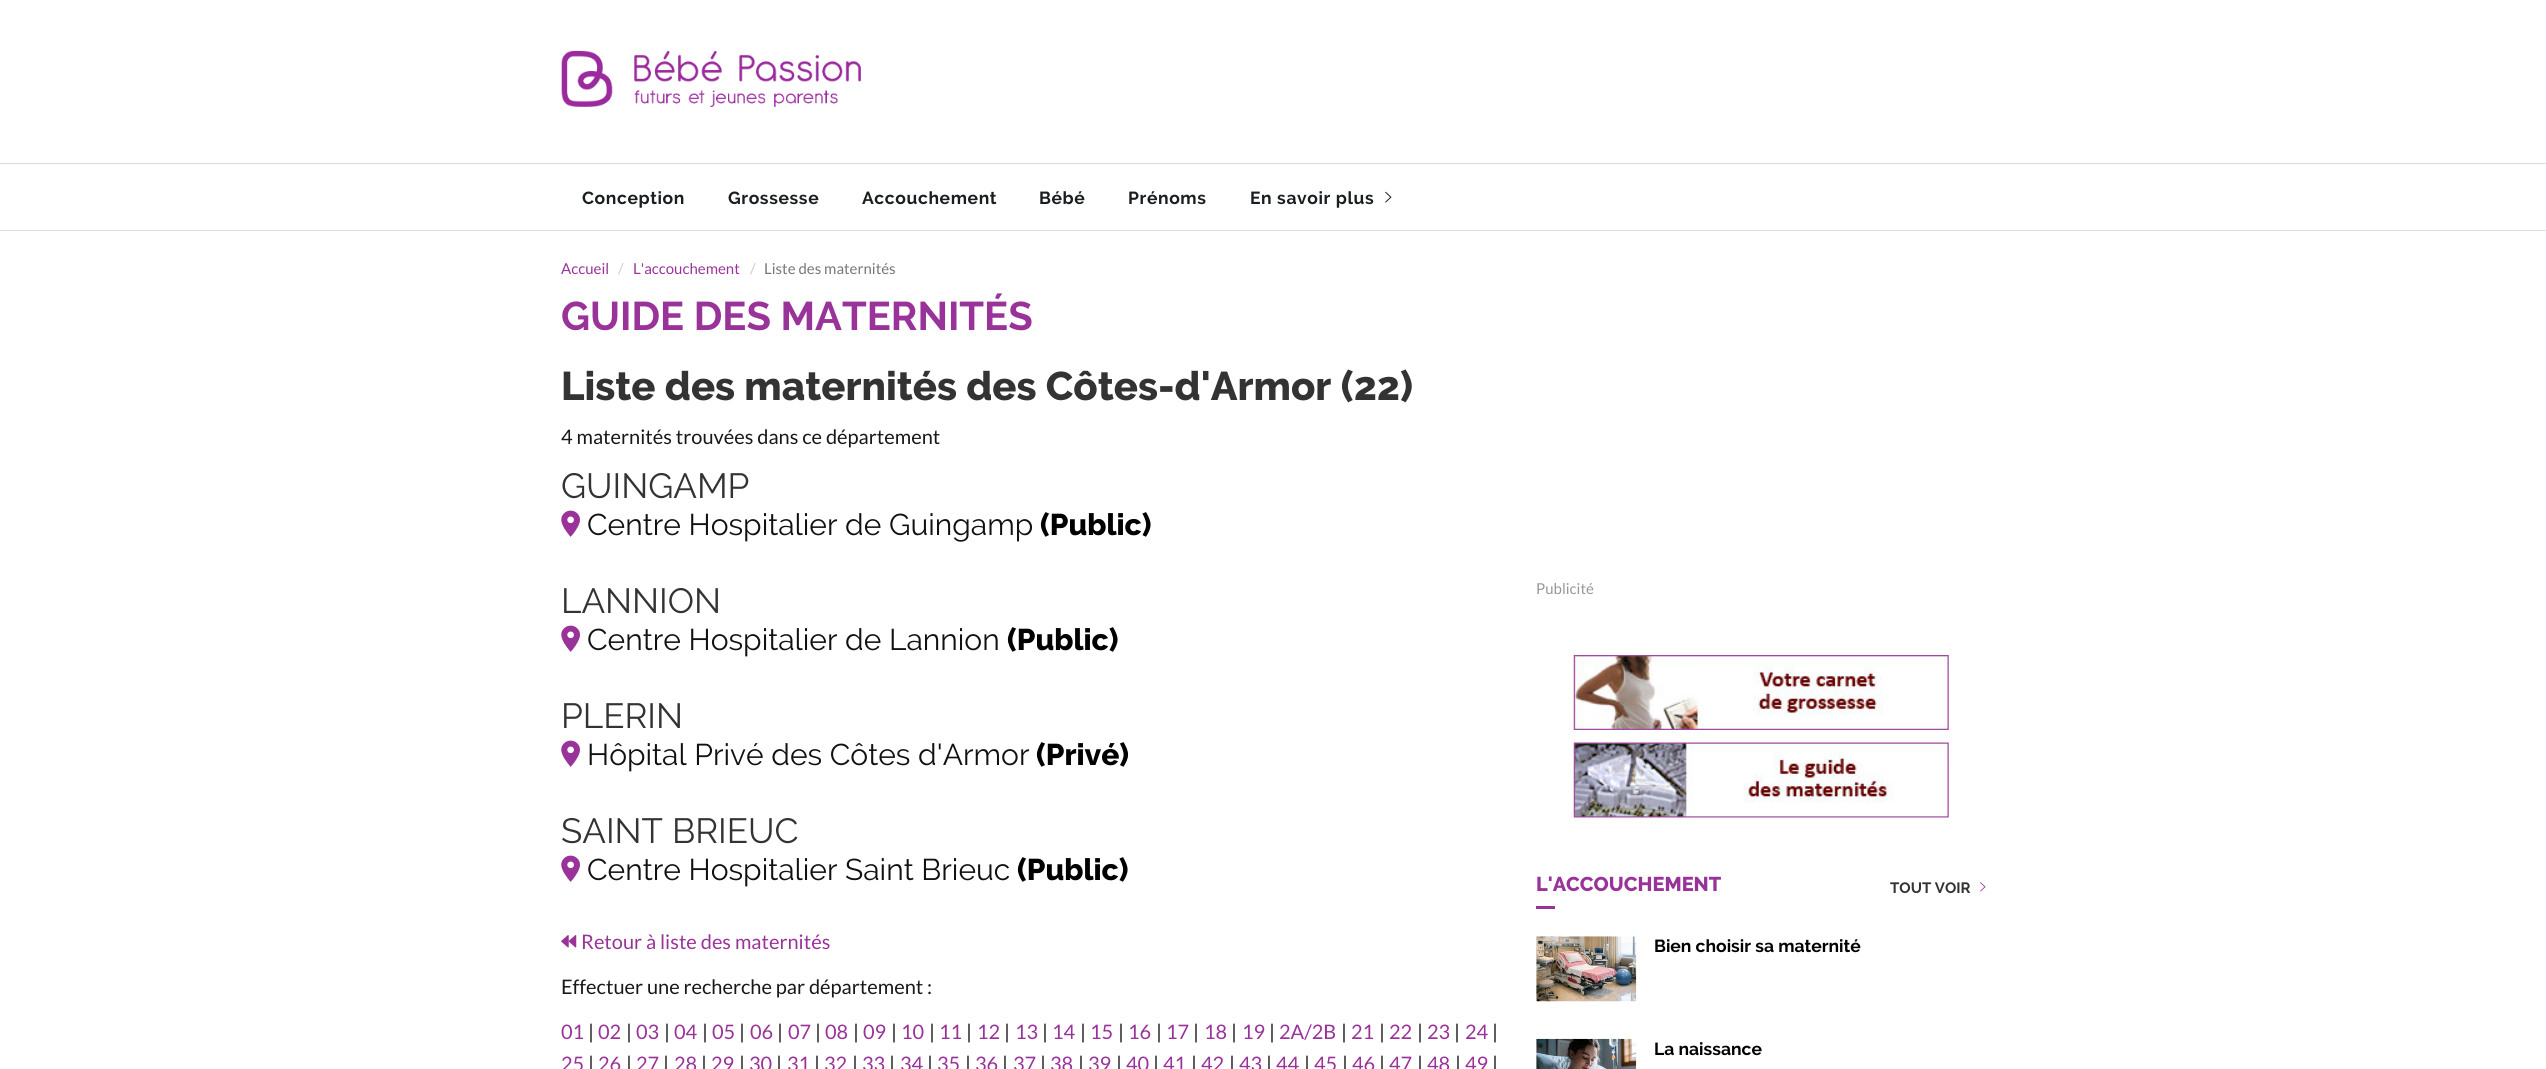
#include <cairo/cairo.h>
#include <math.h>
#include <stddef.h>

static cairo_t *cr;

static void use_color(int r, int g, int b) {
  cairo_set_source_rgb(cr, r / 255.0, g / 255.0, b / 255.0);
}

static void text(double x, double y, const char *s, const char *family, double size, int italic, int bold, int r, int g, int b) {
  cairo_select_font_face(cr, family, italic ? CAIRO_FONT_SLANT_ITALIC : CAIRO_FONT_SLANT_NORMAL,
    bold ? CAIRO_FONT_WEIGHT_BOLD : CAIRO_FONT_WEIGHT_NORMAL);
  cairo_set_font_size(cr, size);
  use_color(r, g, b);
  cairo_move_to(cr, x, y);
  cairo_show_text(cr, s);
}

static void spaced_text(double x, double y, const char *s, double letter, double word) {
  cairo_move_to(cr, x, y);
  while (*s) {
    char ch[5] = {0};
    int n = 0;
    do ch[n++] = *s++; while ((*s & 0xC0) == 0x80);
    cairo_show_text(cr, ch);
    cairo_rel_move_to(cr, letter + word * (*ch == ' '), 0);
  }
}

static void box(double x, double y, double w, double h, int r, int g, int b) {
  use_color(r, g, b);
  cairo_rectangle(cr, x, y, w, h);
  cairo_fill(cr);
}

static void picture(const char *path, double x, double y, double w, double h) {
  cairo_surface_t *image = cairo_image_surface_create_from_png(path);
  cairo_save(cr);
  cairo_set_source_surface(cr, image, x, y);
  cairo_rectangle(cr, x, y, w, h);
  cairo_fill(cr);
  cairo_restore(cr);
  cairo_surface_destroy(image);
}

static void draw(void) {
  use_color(255, 255, 255);
  cairo_paint(cr);
  picture("img_01.png", 561, 50, 300, 57);
  box(0, 163, 2546, 1, 221, 221, 221);
  box(0, 230, 2546, 1, 221, 221, 221);
  picture("img_02.png", 1385, 191, 7, 12);
  picture("img_03.png", 561, 510, 19, 27);
  picture("img_03.png", 561, 625, 19, 27);
  picture("img_03.png", 561, 740, 19, 27);
  picture("img_03.png", 561, 855, 19, 27);
  picture("img_04.png", 561, 935, 8, 13);
  picture("img_05.png", 568, 935, 9, 13);
  picture("img_06.png", 1573, 655, 376, 75);
  picture("img_07.png", 1573, 742, 376, 76);
  picture("img_08.png", 1980, 882, 6, 10);
  box(1536, 906, 19, 3, 153, 51, 153);
  picture("img_09.png", 1536, 936, 101, 66);
  picture("img_10.png", 1536, 1038, 101, 31);
  cairo_select_font_face(cr, "Raleway", CAIRO_FONT_SLANT_NORMAL, CAIRO_FONT_WEIGHT_BOLD);
  cairo_set_font_size(cr, 17.5);
  use_color(25, 30, 33);
  spaced_text(582, 204, "Conception", 0.6, 0);
  spaced_text(728, 204, "Grossesse", 0.6, 0);
  spaced_text(862, 204, "Accouchement", 0.6, 0);
  spaced_text(1039, 204, "Bébé", 0.6, 0);
  spaced_text(1128, 204, "Prénoms", 0.6, 0);
  spaced_text(1250, 204, "En savoir plus", 0.6, 0);
  text(561, 274, "Accueil", "Lato", 15, 0, 0, 153, 51, 153);
  text(618, 274, "/", "Lato", 15, 0, 0, 204, 204, 204);
  text(633, 274, "L'accouchement", "Lato", 15, 0, 0, 153, 51, 153);
  text(750, 274, "/", "Lato", 15, 0, 0, 204, 204, 204);
  text(764, 274, "Liste des maternités", "Lato", 15, 0, 0, 119, 119, 119);
  text(561, 330, "GUIDE DES MATERNITÉS", "Raleway", 40, 0, 1, 153, 51, 153);
  text(561, 400, "Liste des maternités des Côtes-d'Armor (22)", "Raleway ExtraBold", 40, 0, 0, 51, 51, 51);
  text(561, 444, "4 maternités trouvées dans ce département", "Lato", 20, 0, 0, 24, 24, 24);
  text(561, 498, "GUINGAMP", "Raleway", 35, 0, 0, 51, 51, 51);
  text(587, 535, "Centre Hospitalier de Guingamp", "Raleway", 30, 0, 0, 17, 17, 17);
  text(1040, 535, "(Public)", "Raleway ExtraBold", 30, 0, 0, 0, 0, 0);
  text(561, 613, "LANNION", "Raleway", 35, 0, 0, 51, 51, 51);
  text(587, 650, "Centre Hospitalier de Lannion", "Raleway", 30, 0, 0, 17, 17, 17);
  text(1007, 650, "(Public)", "Raleway ExtraBold", 30, 0, 0, 0, 0, 0);
  text(561, 728, "PLERIN", "Raleway", 35, 0, 0, 51, 51, 51);
  text(587, 765, "Hôpital Privé des Côtes d'Armor", "Raleway", 30, 0, 0, 17, 17, 17);
  text(1036, 765, "(Privé)", "Raleway ExtraBold", 30, 0, 0, 0, 0, 0);
  text(561, 843, "SAINT BRIEUC", "Raleway", 35, 0, 0, 51, 51, 51);
  text(587, 880, "Centre Hospitalier Saint Brieuc", "Raleway", 30, 0, 0, 17, 17, 17);
  text(1017, 880, "(Public)", "Raleway ExtraBold", 30, 0, 0, 0, 0, 0);
  text(581, 949, "Retour à liste des maternités", "Lato", 20, 0, 0, 153, 51, 153);
  text(561, 994, "Effectuer une recherche par département :", "Lato", 20, 0, 0, 24, 24, 24);
  text(561, 1039, "01", "Lato", 20, 0, 0, 153, 51, 153);
  text(588, 1039, "|", "Lato", 20, 0, 0, 24, 24, 24);
  text(598, 1039, "02", "Lato", 20, 0, 0, 153, 51, 153);
  text(626, 1039, "|", "Lato", 20, 0, 0, 24, 24, 24);
  text(636, 1039, "03", "Lato", 20, 0, 0, 153, 51, 153);
  text(664, 1039, "|", "Lato", 20, 0, 0, 24, 24, 24);
  text(674, 1039, "04", "Lato", 20, 0, 0, 153, 51, 153);
  text(702, 1039, "|", "Lato", 20, 0, 0, 24, 24, 24);
  text(712, 1039, "05", "Lato", 20, 0, 0, 153, 51, 153);
  text(739, 1039, "|", "Lato", 20, 0, 0, 24, 24, 24);
  text(750, 1039, "06", "Lato", 20, 0, 0, 153, 51, 153);
  text(777, 1039, "|", "Lato", 20, 0, 0, 24, 24, 24);
  text(788, 1039, "07", "Lato", 20, 0, 0, 153, 51, 153);
  text(815, 1039, "|", "Lato", 20, 0, 0, 24, 24, 24);
  text(825, 1039, "08", "Lato", 20, 0, 0, 153, 51, 153);
  text(853, 1039, "|", "Lato", 20, 0, 0, 24, 24, 24);
  text(863, 1039, "09", "Lato", 20, 0, 0, 153, 51, 153);
  text(891, 1039, "|", "Lato", 20, 0, 0, 24, 24, 24);
  text(901, 1039, "10", "Lato", 20, 0, 0, 153, 51, 153);
  text(929, 1039, "|", "Lato", 20, 0, 0, 24, 24, 24);
  text(939, 1039, "11", "Lato", 20, 0, 0, 153, 51, 153);
  text(966, 1039, "|", "Lato", 20, 0, 0, 24, 24, 24);
  text(977, 1039, "12", "Lato", 20, 0, 0, 153, 51, 153);
  text(1004, 1039, "|", "Lato", 20, 0, 0, 24, 24, 24);
  text(1015, 1039, "13", "Lato", 20, 0, 0, 153, 51, 153);
  text(1042, 1039, "|", "Lato", 20, 0, 0, 24, 24, 24);
  text(1052, 1039, "14", "Lato", 20, 0, 0, 153, 51, 153);
  text(1080, 1039, "|", "Lato", 20, 0, 0, 24, 24, 24);
  text(1090, 1039, "15", "Lato", 20, 0, 0, 153, 51, 153);
  text(1118, 1039, "|", "Lato", 20, 0, 0, 24, 24, 24);
  text(1128, 1039, "16", "Lato", 20, 0, 0, 153, 51, 153);
  text(1156, 1039, "|", "Lato", 20, 0, 0, 24, 24, 24);
  text(1166, 1039, "17", "Lato", 20, 0, 0, 153, 51, 153);
  text(1193, 1039, "|", "Lato", 20, 0, 0, 24, 24, 24);
  text(1204, 1039, "18", "Lato", 20, 0, 0, 153, 51, 153);
  text(1231, 1039, "|", "Lato", 20, 0, 0, 24, 24, 24);
  text(1242, 1039, "19", "Lato", 20, 0, 0, 153, 51, 153);
  text(1269, 1039, "|", "Lato", 20, 0, 0, 24, 24, 24);
  text(1279, 1039, "2A/2B", "Lato", 20, 0, 0, 153, 51, 153);
  text(1341, 1039, "|", "Lato", 20, 0, 0, 24, 24, 24);
  text(1351, 1039, "21", "Lato", 20, 0, 0, 153, 51, 153);
  text(1379, 1039, "|", "Lato", 20, 0, 0, 24, 24, 24);
  text(1389, 1039, "22", "Lato", 20, 0, 0, 153, 51, 153);
  text(1417, 1039, "|", "Lato", 20, 0, 0, 24, 24, 24);
  text(1427, 1039, "23", "Lato", 20, 0, 0, 153, 51, 153);
  text(1454, 1039, "|", "Lato", 20, 0, 0, 24, 24, 24);
  text(1465, 1039, "24", "Lato", 20, 0, 0, 153, 51, 153);
  text(1492, 1039, "|", "Lato", 20, 0, 0, 24, 24, 24);
  text(561, 1071, "25", "Lato", 20, 0, 0, 153, 51, 153);
  text(588, 1071, "|", "Lato", 20, 0, 0, 24, 24, 24);
  text(598, 1071, "26", "Lato", 20, 0, 0, 153, 51, 153);
  text(626, 1071, "|", "Lato", 20, 0, 0, 24, 24, 24);
  text(636, 1071, "27", "Lato", 20, 0, 0, 153, 51, 153);
  text(663, 1071, "|", "Lato", 20, 0, 0, 24, 24, 24);
  text(674, 1071, "28", "Lato", 20, 0, 0, 153, 51, 153);
  text(701, 1071, "|", "Lato", 20, 0, 0, 24, 24, 24);
  text(711, 1071, "29", "Lato", 20, 0, 0, 153, 51, 153);
  text(739, 1071, "|", "Lato", 20, 0, 0, 24, 24, 24);
  text(749, 1071, "30", "Lato", 20, 0, 0, 153, 51, 153);
  text(776, 1071, "|", "Lato", 20, 0, 0, 24, 24, 24);
  text(787, 1071, "31", "Lato", 20, 0, 0, 153, 51, 153);
  text(814, 1071, "|", "Lato", 20, 0, 0, 24, 24, 24);
  text(824, 1071, "32", "Lato", 20, 0, 0, 153, 51, 153);
  text(852, 1071, "|", "Lato", 20, 0, 0, 24, 24, 24);
  text(862, 1071, "33", "Lato", 20, 0, 0, 153, 51, 153);
  text(889, 1071, "|", "Lato", 20, 0, 0, 24, 24, 24);
  text(900, 1071, "34", "Lato", 20, 0, 0, 153, 51, 153);
  text(927, 1071, "|", "Lato", 20, 0, 0, 24, 24, 24);
  text(937, 1071, "35", "Lato", 20, 0, 0, 153, 51, 153);
  text(965, 1071, "|", "Lato", 20, 0, 0, 24, 24, 24);
  text(975, 1071, "36", "Lato", 20, 0, 0, 153, 51, 153);
  text(1002, 1071, "|", "Lato", 20, 0, 0, 24, 24, 24);
  text(1013, 1071, "37", "Lato", 20, 0, 0, 153, 51, 153);
  text(1040, 1071, "|", "Lato", 20, 0, 0, 24, 24, 24);
  text(1050, 1071, "38", "Lato", 20, 0, 0, 153, 51, 153);
  text(1078, 1071, "|", "Lato", 20, 0, 0, 24, 24, 24);
  text(1088, 1071, "39", "Lato", 20, 0, 0, 153, 51, 153);
  text(1116, 1071, "|", "Lato", 20, 0, 0, 24, 24, 24);
  text(1126, 1071, "40", "Lato", 20, 0, 0, 153, 51, 153);
  text(1153, 1071, "|", "Lato", 20, 0, 0, 24, 24, 24);
  text(1163, 1071, "41", "Lato", 20, 0, 0, 153, 51, 153);
  text(1191, 1071, "|", "Lato", 20, 0, 0, 24, 24, 24);
  text(1201, 1071, "42", "Lato", 20, 0, 0, 153, 51, 153);
  text(1229, 1071, "|", "Lato", 20, 0, 0, 24, 24, 24);
  text(1239, 1071, "43", "Lato", 20, 0, 0, 153, 51, 153);
  text(1266, 1071, "|", "Lato", 20, 0, 0, 24, 24, 24);
  text(1276, 1071, "44", "Lato", 20, 0, 0, 153, 51, 153);
  text(1304, 1071, "|", "Lato", 20, 0, 0, 24, 24, 24);
  text(1314, 1071, "45", "Lato", 20, 0, 0, 153, 51, 153);
  text(1342, 1071, "|", "Lato", 20, 0, 0, 24, 24, 24);
  text(1352, 1071, "46", "Lato", 20, 0, 0, 153, 51, 153);
  text(1379, 1071, "|", "Lato", 20, 0, 0, 24, 24, 24);
  text(1389, 1071, "47", "Lato", 20, 0, 0, 153, 51, 153);
  text(1417, 1071, "|", "Lato", 20, 0, 0, 24, 24, 24);
  text(1427, 1071, "48", "Lato", 20, 0, 0, 153, 51, 153);
  text(1455, 1071, "|", "Lato", 20, 0, 0, 24, 24, 24);
  text(1465, 1071, "49", "Lato", 20, 0, 0, 153, 51, 153);
  text(1492, 1071, "|", "Lato", 20, 0, 0, 24, 24, 24);
  text(1536, 594, "Publicité", "Lato", 15, 0, 0, 152, 152, 152);
  text(1536, 891, "L'ACCOUCHEMENT", "Raleway ExtraBold", 20, 0, 0, 153, 51, 153);
  text(1890, 893, "TOUT VOIR", "Raleway", 15, 0, 1, 51, 51, 51);
  text(1654, 952, "Bien choisir sa maternité", "Raleway", 17.5, 0, 1, 0, 0, 0);
  text(1654, 1055, "La naissance", "Raleway", 17.5, 0, 1, 0, 0, 0);
}

int main(void) {
  cairo_surface_t *surface = cairo_image_surface_create(CAIRO_FORMAT_RGB24, 2546, 1069);
  cr = cairo_create(surface);
  cairo_font_options_t *options = cairo_font_options_create();
  cairo_font_options_set_hint_metrics(options, CAIRO_HINT_METRICS_OFF);
  cairo_font_options_set_hint_style(options, CAIRO_HINT_STYLE_NONE);
  cairo_set_font_options(cr, options);
  cairo_set_miter_limit(cr, 4);
  draw();
  cairo_surface_write_to_png(surface, "out.png");
  cairo_font_options_destroy(options);
  cairo_destroy(cr);
  cairo_surface_destroy(surface);
  return 0;
}
